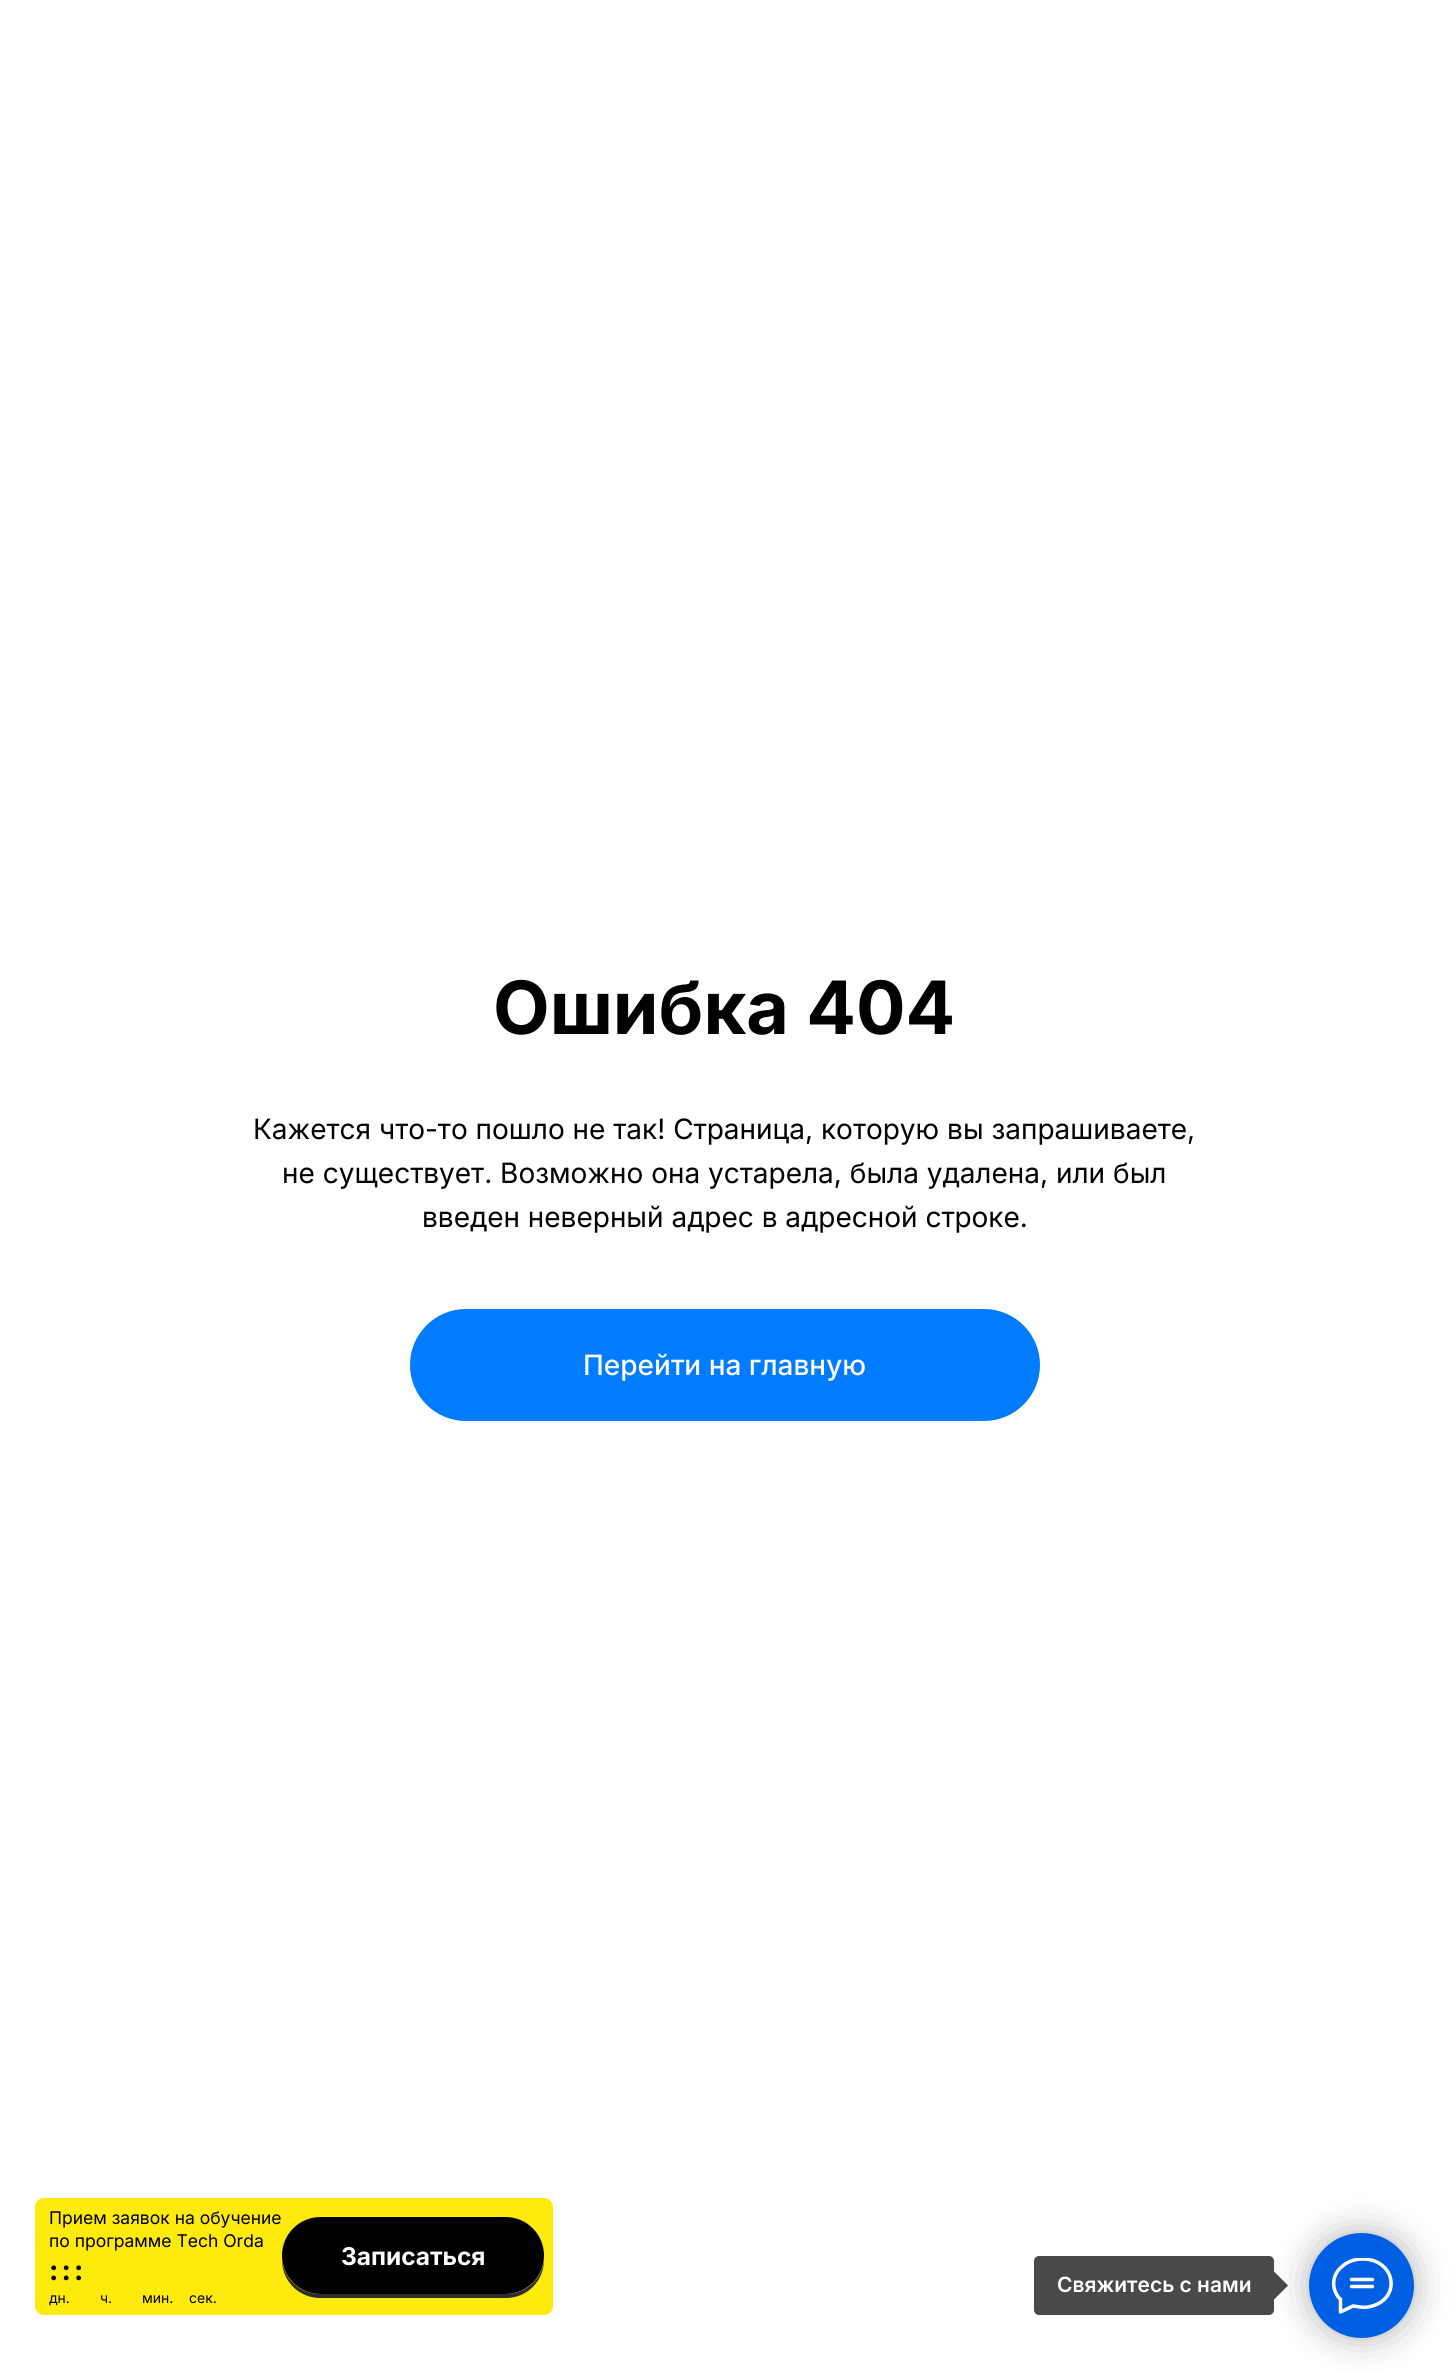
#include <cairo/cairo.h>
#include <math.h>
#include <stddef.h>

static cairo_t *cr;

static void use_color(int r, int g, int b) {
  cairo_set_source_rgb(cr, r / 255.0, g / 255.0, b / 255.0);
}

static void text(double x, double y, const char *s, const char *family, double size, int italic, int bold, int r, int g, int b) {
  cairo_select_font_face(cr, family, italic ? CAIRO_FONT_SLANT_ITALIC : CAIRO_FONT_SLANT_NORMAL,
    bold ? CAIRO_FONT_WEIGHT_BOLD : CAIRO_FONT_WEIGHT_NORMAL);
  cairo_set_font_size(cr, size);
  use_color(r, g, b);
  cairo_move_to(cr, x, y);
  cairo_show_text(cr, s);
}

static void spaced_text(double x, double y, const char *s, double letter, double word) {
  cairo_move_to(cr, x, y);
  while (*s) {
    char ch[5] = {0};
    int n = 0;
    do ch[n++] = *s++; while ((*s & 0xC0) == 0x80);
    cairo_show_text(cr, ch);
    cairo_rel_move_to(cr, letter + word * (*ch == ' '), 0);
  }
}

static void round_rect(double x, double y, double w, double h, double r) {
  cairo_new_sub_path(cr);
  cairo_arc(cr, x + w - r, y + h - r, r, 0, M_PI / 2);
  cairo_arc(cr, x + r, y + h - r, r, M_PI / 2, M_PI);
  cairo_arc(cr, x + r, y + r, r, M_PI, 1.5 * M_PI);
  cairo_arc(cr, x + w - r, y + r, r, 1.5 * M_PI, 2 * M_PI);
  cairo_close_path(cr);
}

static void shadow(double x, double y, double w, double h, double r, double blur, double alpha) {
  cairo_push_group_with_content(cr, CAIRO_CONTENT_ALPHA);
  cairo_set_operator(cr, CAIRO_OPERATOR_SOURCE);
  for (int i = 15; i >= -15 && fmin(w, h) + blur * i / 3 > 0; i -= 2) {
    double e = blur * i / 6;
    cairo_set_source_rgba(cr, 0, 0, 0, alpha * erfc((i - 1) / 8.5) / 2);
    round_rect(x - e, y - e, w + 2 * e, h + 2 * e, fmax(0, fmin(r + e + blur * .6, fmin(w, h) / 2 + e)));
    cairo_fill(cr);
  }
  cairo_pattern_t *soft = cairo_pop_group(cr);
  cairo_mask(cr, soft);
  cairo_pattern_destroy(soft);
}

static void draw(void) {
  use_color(255, 255, 255);
  cairo_paint(cr);
  use_color(1, 123, 255);
  round_rect(410, 1309, 630, 112, 56);
  cairo_fill(cr);
  use_color(255, 234, 14);
  round_rect(35, 2198, 518, 117, 9);
  cairo_fill(cr);
  use_color(45, 45, 45);
  cairo_new_path(cr);
  cairo_move_to(cr, 282, 2260);
  cairo_curve_to(cr, 282, 2281, 299, 2298, 320, 2298);
  cairo_line_to(cr, 506, 2298);
  cairo_curve_to(cr, 527, 2298, 544, 2281, 544, 2260);
  cairo_curve_to(cr, 542, 2279, 526, 2294, 506, 2294);
  cairo_line_to(cr, 320, 2294);
  cairo_curve_to(cr, 300, 2294, 284, 2279, 282, 2260);
  cairo_close_path(cr);
  cairo_fill(cr);
  use_color(0, 0, 0);
  round_rect(282, 2217, 262, 77, 38.5);
  cairo_fill(cr);
  use_color(73, 73, 73);
  round_rect(1034, 2256, 240, 59, 5);
  cairo_fill(cr);
  cairo_new_path(cr);
  cairo_move_to(cr, 1274, 2299.5);
  cairo_line_to(cr, 1274, 2271.5);
  cairo_line_to(cr, 1288, 2285.5);
  cairo_close_path(cr);
  cairo_fill(cr);
  use_color(0, 0, 0);
  shadow(1309, 2233, 105, 105, 52.5, 17.5, 0.3);
  use_color(0, 95, 227);
  cairo_arc(cr, 1361.5, 2285.5, 52.5, 0, 2 * M_PI);
  cairo_fill(cr);
  cairo_save(cr);
  cairo_rectangle(cr, 1332, 2258, 61, 56);
  cairo_clip(cr);
  cairo_new_path(cr);
  cairo_move_to(cr, 1351.5, 2279.5);
  cairo_line_to(cr, 1372.5, 2279.5);
  cairo_move_to(cr, 1351.5, 2286.5);
  cairo_line_to(cr, 1372.5, 2286.5);
  cairo_move_to(cr, 1340, 2299);
  cairo_curve_to(cr, 1331, 2289.5, 1331.5, 2275, 1342, 2266.5);
  cairo_curve_to(cr, 1347.5, 2261.5, 1355, 2259, 1362.5, 2259);
  cairo_curve_to(cr, 1396.5, 2259, 1402.5, 2301, 1368, 2307);
  cairo_curve_to(cr, 1362, 2308, 1358.5, 2306.5, 1353, 2306);
  cairo_line_to(cr, 1340.5, 2312);
  cairo_line_to(cr, 1340.5, 2299);
  cairo_close_path(cr);
  use_color(255, 255, 255);
  cairo_set_line_width(cr, 3.5);
  cairo_set_line_cap(cr, CAIRO_LINE_CAP_ROUND);
  cairo_set_line_join(cr, CAIRO_LINE_JOIN_ROUND);
  cairo_stroke(cr);
  cairo_restore(cr);
  text(493, 1034, "Ошибка 404", "Inter", 73.5, 0, 1, 0, 0, 0);
  text(253, 1139, "Кажется что-то пошло не так! Страница, которую вы запрашиваете,", "Inter", 28, 0, 0, 0, 0, 0);
  text(282, 1183, "не существует. Возможно она устарела, была удалена, или был", "Inter", 28, 0, 0, 0, 0, 0);
  text(422, 1227, "введен неверный адрес в адресной строке.", "Inter", 28, 0, 0, 0, 0, 0);
  text(583, 1375, "Перейти на главную", "Inter Medium", 28, 0, 0, 255, 255, 255);
  text(49, 2224, "Прием заявок на обучение", "Inter", 17.5, 0, 0, 0, 0, 0);
  text(49, 2247, "по программе Tech Orda", "Inter", 17.5, 0, 0, 0, 0, 0);
  text(341, 2265, "Записаться", "Inter", 24.5, 0, 1, 255, 255, 255);
  cairo_set_font_size(cr, 28);
  use_color(0, 0, 0);
  spaced_text(49, 2280, ": : :", -1.75, 0);
  text(49, 2303, "дн.", "Inter", 14, 0, 0, 0, 0, 0);
  text(100, 2303, "ч.", "Inter", 14, 0, 0, 0, 0, 0);
  text(142, 2303, "мин.", "Inter", 14, 0, 0, 0, 0, 0);
  text(189, 2303, "сек.", "Inter", 14, 0, 0, 0, 0, 0);
  text(1057, 2292, "Свяжитесь с нами", "Inter SemiBold", 21, 0, 0, 255, 255, 255);
}

int main(void) {
  cairo_surface_t *surface = cairo_image_surface_create(CAIRO_FORMAT_RGB24, 1449, 2373);
  cr = cairo_create(surface);
  cairo_font_options_t *options = cairo_font_options_create();
  cairo_font_options_set_hint_metrics(options, CAIRO_HINT_METRICS_OFF);
  cairo_font_options_set_hint_style(options, CAIRO_HINT_STYLE_NONE);
  cairo_set_font_options(cr, options);
  cairo_set_miter_limit(cr, 4);
  draw();
  cairo_surface_write_to_png(surface, "out.png");
  cairo_font_options_destroy(options);
  cairo_destroy(cr);
  cairo_surface_destroy(surface);
  return 0;
}
